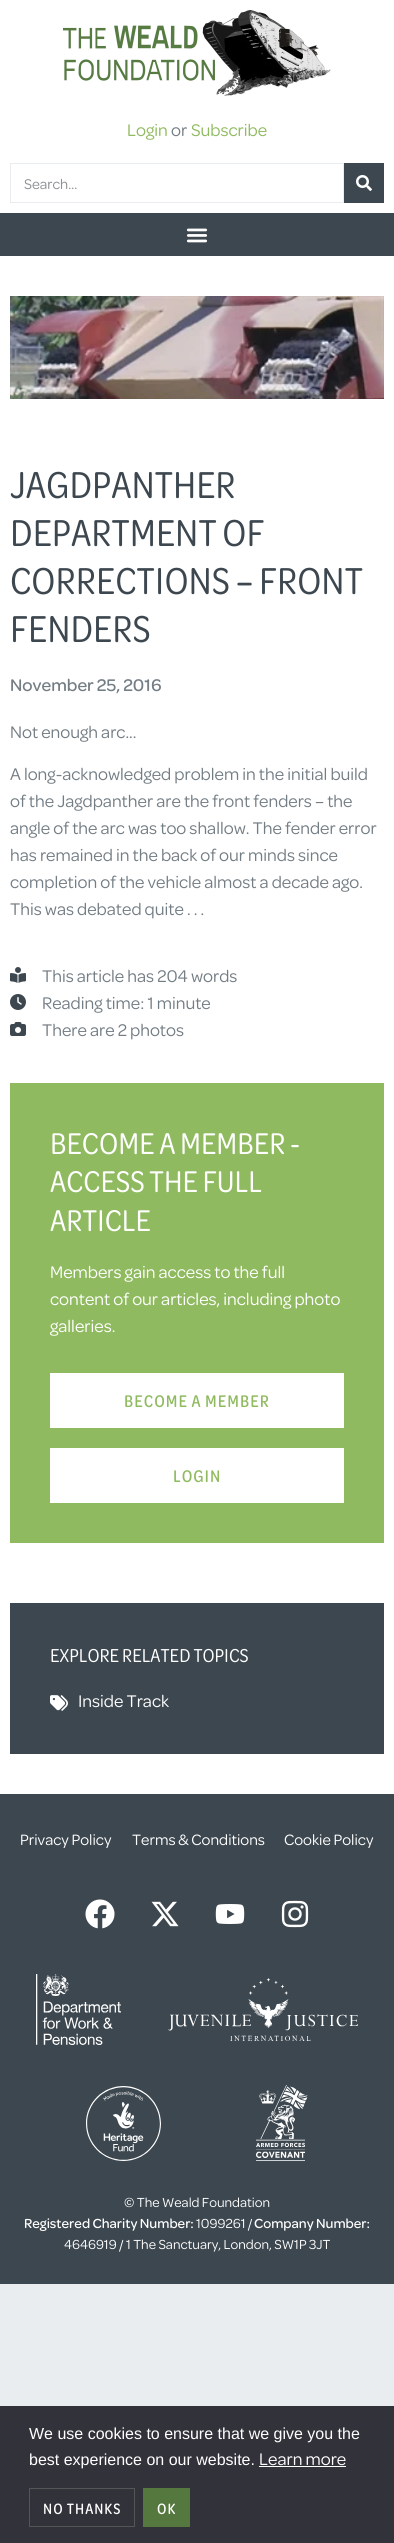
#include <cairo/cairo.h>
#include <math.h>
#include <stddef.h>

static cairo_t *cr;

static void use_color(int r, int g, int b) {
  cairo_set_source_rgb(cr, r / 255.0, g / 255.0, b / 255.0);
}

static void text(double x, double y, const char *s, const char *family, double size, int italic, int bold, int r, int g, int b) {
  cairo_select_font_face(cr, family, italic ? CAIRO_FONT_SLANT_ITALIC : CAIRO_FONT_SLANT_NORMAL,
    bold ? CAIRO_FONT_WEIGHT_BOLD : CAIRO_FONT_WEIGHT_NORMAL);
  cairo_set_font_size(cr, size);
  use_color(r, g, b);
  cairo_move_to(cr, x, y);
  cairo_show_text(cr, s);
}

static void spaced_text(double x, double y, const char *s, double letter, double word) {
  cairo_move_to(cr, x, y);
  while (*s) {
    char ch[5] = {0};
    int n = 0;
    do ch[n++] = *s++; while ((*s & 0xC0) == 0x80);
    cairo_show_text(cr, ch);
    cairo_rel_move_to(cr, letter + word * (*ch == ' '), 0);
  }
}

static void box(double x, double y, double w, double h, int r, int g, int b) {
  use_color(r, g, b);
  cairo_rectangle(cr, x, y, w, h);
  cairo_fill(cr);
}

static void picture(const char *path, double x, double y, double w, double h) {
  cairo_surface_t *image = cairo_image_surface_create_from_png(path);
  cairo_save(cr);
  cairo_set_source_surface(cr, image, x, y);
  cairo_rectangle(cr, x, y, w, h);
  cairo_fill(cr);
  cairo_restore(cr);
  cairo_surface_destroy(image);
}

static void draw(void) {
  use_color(234, 237, 239);
  cairo_paint(cr);
  box(0, 0, 394, 213, 255, 255, 255);
  picture("img_01.png", 63, 10, 268, 86);
  cairo_rectangle(cr, 10.5, 163.5, 333, 39);
  use_color(234, 237, 239);
  cairo_set_line_width(cr, 1);
  cairo_stroke(cr);
  box(344, 163, 40, 40, 61, 71, 79);
  picture("img_02.png", 356, 175, 16, 16);
  box(0, 213, 394, 43, 61, 71, 79);
  picture("img_03.png", 186, 228, 22, 15);
  box(0, 256, 394, 1538, 255, 255, 255);
  picture("img_04.png", 10, 296, 374, 103);
  picture("img_05.png", 10, 967, 16, 16);
  picture("img_06.png", 10, 994, 16, 16);
  picture("img_07.png", 10, 1022, 16, 14);
  box(10, 1083, 374, 460, 143, 186, 95);
  box(50, 1373, 294, 55, 255, 255, 255);
  box(50, 1448, 294, 55, 255, 255, 255);
  box(10, 1603, 374, 151, 61, 71, 79);
  picture("img_08.png", 50, 1695, 18, 16);
  box(0, 1794, 394, 490, 61, 71, 79);
  picture("img_09.png", 85, 1899, 30, 30);
  picture("img_10.png", 151, 1901, 28, 26);
  picture("img_11.png", 215, 1904, 30, 20);
  picture("img_12.png", 281, 1900, 28, 28);
  picture("img_13.png", 36, 1974, 85, 71);
  picture("img_14.png", 168, 1978, 190, 63);
  picture("img_15.png", 86, 2086, 75, 75);
  picture("img_16.png", 256, 2085, 52, 76);
  box(0, 2406, 394, 137, 50, 50, 58);
  box(259, 2466, 87, 1, 255, 255, 255);
  cairo_rectangle(cr, 29.5, 2488.5, 105, 38);
  use_color(85, 85, 85);
  cairo_stroke(cr);
  box(143, 2488, 47, 39, 85, 120, 62);
  text(127, 136, "Login", "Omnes", 18, 0, 0, 143, 186, 95);
  text(171, 136, "or", "Omnes", 18, 0, 0, 115, 125, 132);
  text(191, 136, "Subscribe", "Omnes", 18, 0, 0, 143, 186, 95);
  text(24, 189, "Search...", "Omnes", 15, 0, 0, 140, 143, 147);
  text(10, 498, "JAGDPANTHER", "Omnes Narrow", 40, 0, 0, 61, 71, 79);
  text(10, 546, "DEPARTMENT OF", "Omnes Narrow", 40, 0, 0, 61, 71, 79);
  text(10, 594, "CORRECTIONS – FRONT", "Omnes Narrow", 40, 0, 0, 61, 71, 79);
  text(10, 642, "FENDERS", "Omnes Narrow", 40, 0, 0, 61, 71, 79);
  text(10, 691, "November 25, 2016", "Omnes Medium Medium", 18, 0, 0, 115, 125, 132);
  text(10, 738, "Not enough arc...", "Omnes", 18, 0, 0, 115, 125, 132);
  text(10, 780, "A long-acknowledged problem in the initial build", "Omnes", 18, 0, 0, 115, 125, 132);
  text(10, 807, "of the Jagdpanther are the front fenders – the", "Omnes", 18, 0, 0, 115, 125, 132);
  text(10, 834, "angle of the arc was too shallow. The fender error", "Omnes", 18, 0, 0, 115, 125, 132);
  text(10, 861, "has remained in the back of our minds since", "Omnes", 18, 0, 0, 115, 125, 132);
  text(10, 888, "completion of the vehicle almost a decade ago.", "Omnes", 18, 0, 0, 115, 125, 132);
  text(10, 915, "This was debated quite . . .", "Omnes", 18, 0, 0, 115, 125, 132);
  text(42, 982, "This article has 204 words", "Omnes", 18, 0, 0, 115, 125, 132);
  text(42, 1009, "Reading time: 1 minute", "Omnes", 18, 0, 0, 115, 125, 132);
  text(42, 1036, "There are 2 photos", "Omnes", 18, 0, 0, 115, 125, 132);
  text(50, 1154, "BECOME A MEMBER -", "Omnes Narrow", 32, 0, 0, 255, 255, 255);
  text(50, 1192, "ACCESS THE FULL", "Omnes Narrow", 32, 0, 0, 255, 255, 255);
  text(50, 1231, "ARTICLE", "Omnes Narrow", 32, 0, 0, 255, 255, 255);
  text(50, 1278, "Members gain access to the full", "Omnes", 18, 0, 0, 255, 255, 255);
  text(50, 1305, "content of our articles, including photo", "Omnes", 18, 0, 0, 255, 255, 255);
  text(50, 1332, "galleries.", "Omnes", 18, 0, 0, 255, 255, 255);
  cairo_select_font_face(cr, "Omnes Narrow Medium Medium", CAIRO_FONT_SLANT_NORMAL, CAIRO_FONT_WEIGHT_NORMAL);
  use_color(143, 186, 95);
  spaced_text(124, 1407, "BECOME A MEMBER", 1, 0);
  spaced_text(173, 1482, "LOGIN", 1, 0);
  text(50, 1662, "EXPLORE RELATED TOPICS", "Omnes Narrow", 20, 0, 0, 255, 255, 255);
  text(78, 1707, "Inside Track", "Omnes", 18, 0, 0, 255, 255, 255);
  text(20, 1845, "Privacy Policy", "Omnes", 16, 0, 0, 255, 255, 255);
  text(132, 1845, "Terms & Conditions", "Omnes", 16, 0, 0, 255, 255, 255);
  text(284, 1845, "Cookie Policy", "Omnes", 16, 0, 0, 255, 255, 255);
  text(124, 2207, "© The Weald Foundation", "Omnes", 14, 0, 0, 255, 255, 255);
  text(24, 2228, "Registered Charity Number:", "Omnes Medium Medium", 14, 0, 0, 255, 255, 255);
  text(196, 2228, "1099261 /", "Omnes", 14, 0, 0, 255, 255, 255);
  text(254, 2228, "Company Number:", "Omnes Medium Medium", 14, 0, 0, 255, 255, 255);
  text(64, 2249, "4646919 / 1 The Sanctuary, London, SW1P 3JT", "Omnes", 14, 0, 0, 255, 255, 255);
  text(29, 2439, "We use cookies to ensure that we give you the", "Liberation Sans", 16, 0, 0, 255, 255, 255);
  text(29, 2465, "best experience on our website.", "Liberation Sans", 16, 0, 0, 255, 255, 255);
  text(259, 2465, "Learn more", "Omnes", 18, 0, 0, 255, 255, 255);
  cairo_select_font_face(cr, "Omnes Narrow Medium Medium", CAIRO_FONT_SLANT_NORMAL, CAIRO_FONT_WEIGHT_NORMAL);
  cairo_set_font_size(cr, 16);
  spaced_text(43, 2514, "NO THANKS", 1, 0);
  spaced_text(157, 2514, "OK", 1, 0);
}

int main(void) {
  cairo_surface_t *surface = cairo_image_surface_create(CAIRO_FORMAT_RGB24, 394, 2543);
  cr = cairo_create(surface);
  cairo_font_options_t *options = cairo_font_options_create();
  cairo_font_options_set_hint_metrics(options, CAIRO_HINT_METRICS_OFF);
  cairo_font_options_set_hint_style(options, CAIRO_HINT_STYLE_NONE);
  cairo_set_font_options(cr, options);
  cairo_set_miter_limit(cr, 4);
  draw();
  cairo_surface_write_to_png(surface, "out.png");
  cairo_font_options_destroy(options);
  cairo_destroy(cr);
  cairo_surface_destroy(surface);
  return 0;
}
